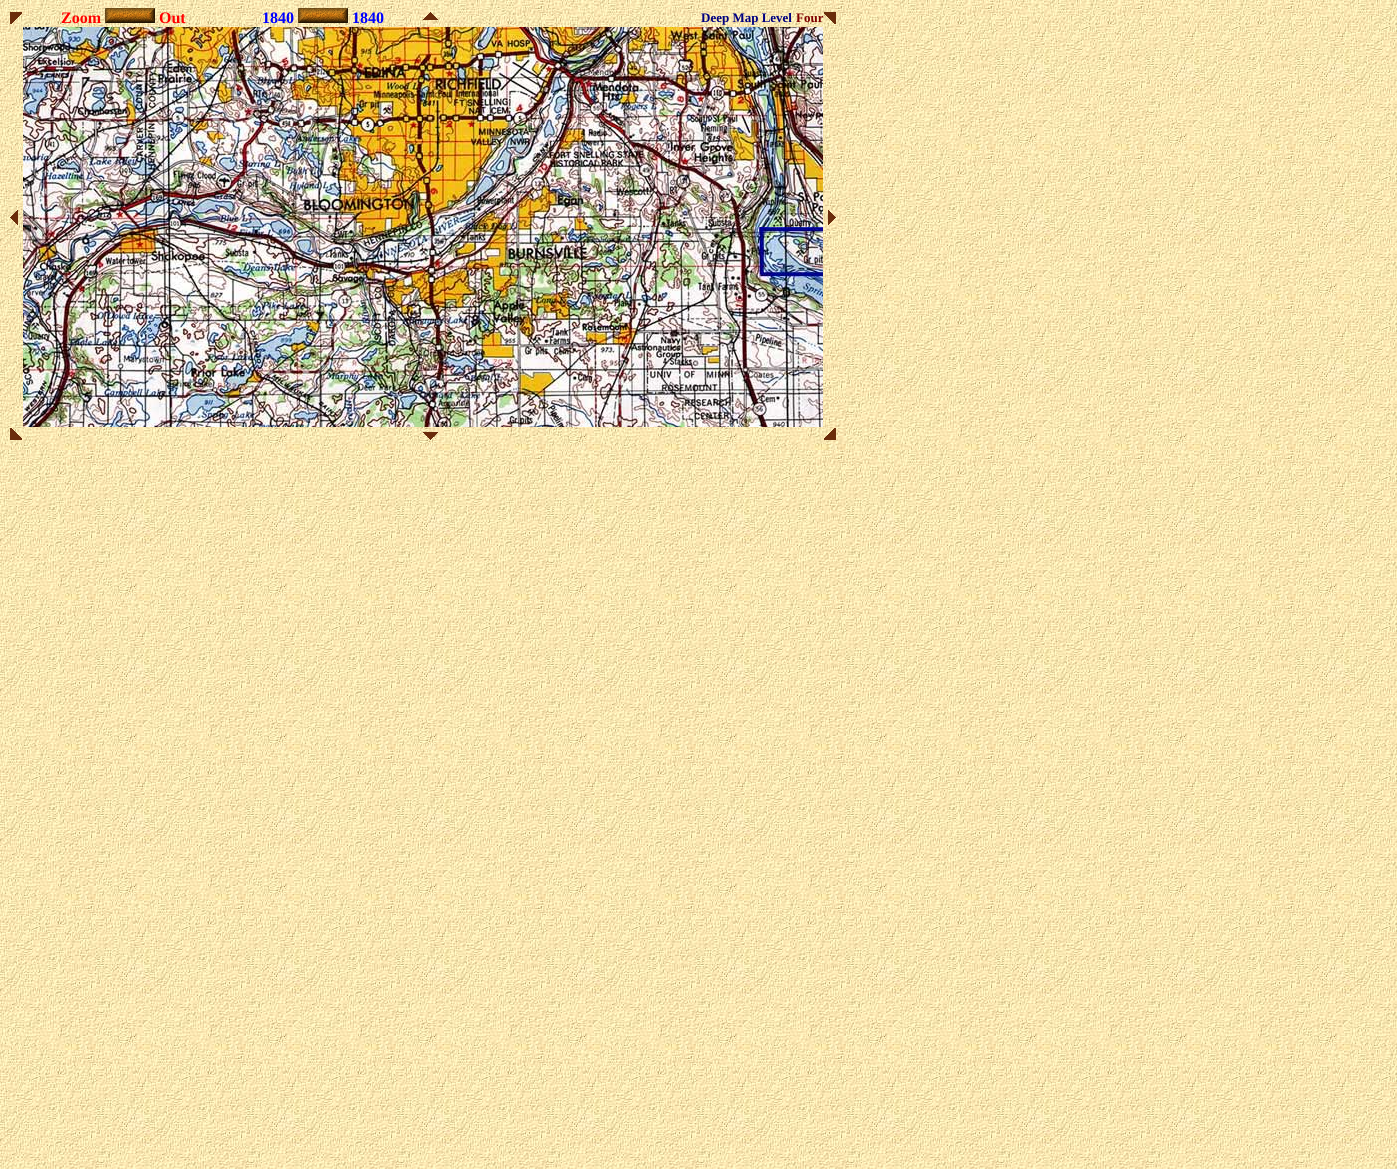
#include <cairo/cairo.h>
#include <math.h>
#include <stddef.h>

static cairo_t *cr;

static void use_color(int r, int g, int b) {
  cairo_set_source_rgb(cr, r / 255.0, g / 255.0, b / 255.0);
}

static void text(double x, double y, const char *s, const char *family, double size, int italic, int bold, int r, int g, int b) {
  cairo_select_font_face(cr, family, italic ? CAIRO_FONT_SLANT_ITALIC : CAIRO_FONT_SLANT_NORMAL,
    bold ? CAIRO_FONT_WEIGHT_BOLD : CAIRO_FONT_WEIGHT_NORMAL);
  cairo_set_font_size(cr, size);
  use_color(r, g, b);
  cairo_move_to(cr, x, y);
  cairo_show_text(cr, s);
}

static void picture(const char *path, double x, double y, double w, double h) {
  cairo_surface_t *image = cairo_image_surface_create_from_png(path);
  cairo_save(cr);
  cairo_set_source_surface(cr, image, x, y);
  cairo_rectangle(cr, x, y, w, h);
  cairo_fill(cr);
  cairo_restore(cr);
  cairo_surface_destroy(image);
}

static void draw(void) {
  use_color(255, 255, 255);
  cairo_paint(cr);
  picture("img_01.png", 0, 0, 1397, 1169);
  picture("img_02.png", 10, 12, 12, 12);
  picture("img_03.png", 105, 8, 50, 15);
  picture("img_03.png", 298, 8, 50, 15);
  picture("img_04.png", 423, 12, 15, 8);
  picture("img_05.png", 824, 12, 12, 12);
  picture("img_06.png", 23, 27, 200, 100);
  picture("img_07.png", 223, 27, 200, 100);
  picture("img_08.png", 423, 27, 200, 100);
  picture("img_09.png", 623, 27, 200, 100);
  picture("img_10.png", 10, 210, 8, 15);
  picture("img_11.png", 23, 127, 200, 100);
  picture("img_12.png", 223, 127, 200, 100);
  picture("img_13.png", 423, 127, 200, 100);
  picture("img_14.png", 623, 127, 200, 100);
  picture("img_15.png", 828, 210, 8, 15);
  picture("img_16.png", 23, 227, 200, 100);
  picture("img_17.png", 223, 227, 200, 100);
  picture("img_18.png", 423, 227, 200, 100);
  picture("img_19.png", 623, 227, 200, 100);
  picture("img_20.png", 23, 327, 200, 100);
  picture("img_21.png", 223, 327, 200, 100);
  picture("img_22.png", 423, 327, 200, 100);
  picture("img_23.png", 623, 327, 200, 100);
  picture("img_24.png", 10, 428, 12, 12);
  picture("img_25.png", 423, 432, 15, 8);
  picture("img_26.png", 824, 428, 12, 12);
  text(61, 23, "Zoom", "Liberation Serif", 16, 0, 1, 255, 0, 0);
  text(159, 23, "Out", "Liberation Serif", 16, 0, 1, 255, 0, 0);
  text(262, 23, "1840", "Liberation Serif", 16, 0, 1, 0, 0, 255);
  text(352, 23, "1840", "Liberation Serif", 16, 0, 1, 0, 0, 255);
  text(701, 22, "Deep Map Level", "Liberation Serif", 13, 0, 1, 0, 0, 128);
  text(796, 22, "Four", "Liberation Serif", 13, 0, 1, 128, 0, 0);
}

int main(void) {
  cairo_surface_t *surface = cairo_image_surface_create(CAIRO_FORMAT_RGB24, 1397, 1169);
  cr = cairo_create(surface);
  cairo_font_options_t *options = cairo_font_options_create();
  cairo_font_options_set_hint_metrics(options, CAIRO_HINT_METRICS_OFF);
  cairo_font_options_set_hint_style(options, CAIRO_HINT_STYLE_NONE);
  cairo_set_font_options(cr, options);
  cairo_set_miter_limit(cr, 4);
  draw();
  cairo_surface_write_to_png(surface, "out.png");
  cairo_font_options_destroy(options);
  cairo_destroy(cr);
  cairo_surface_destroy(surface);
  return 0;
}
